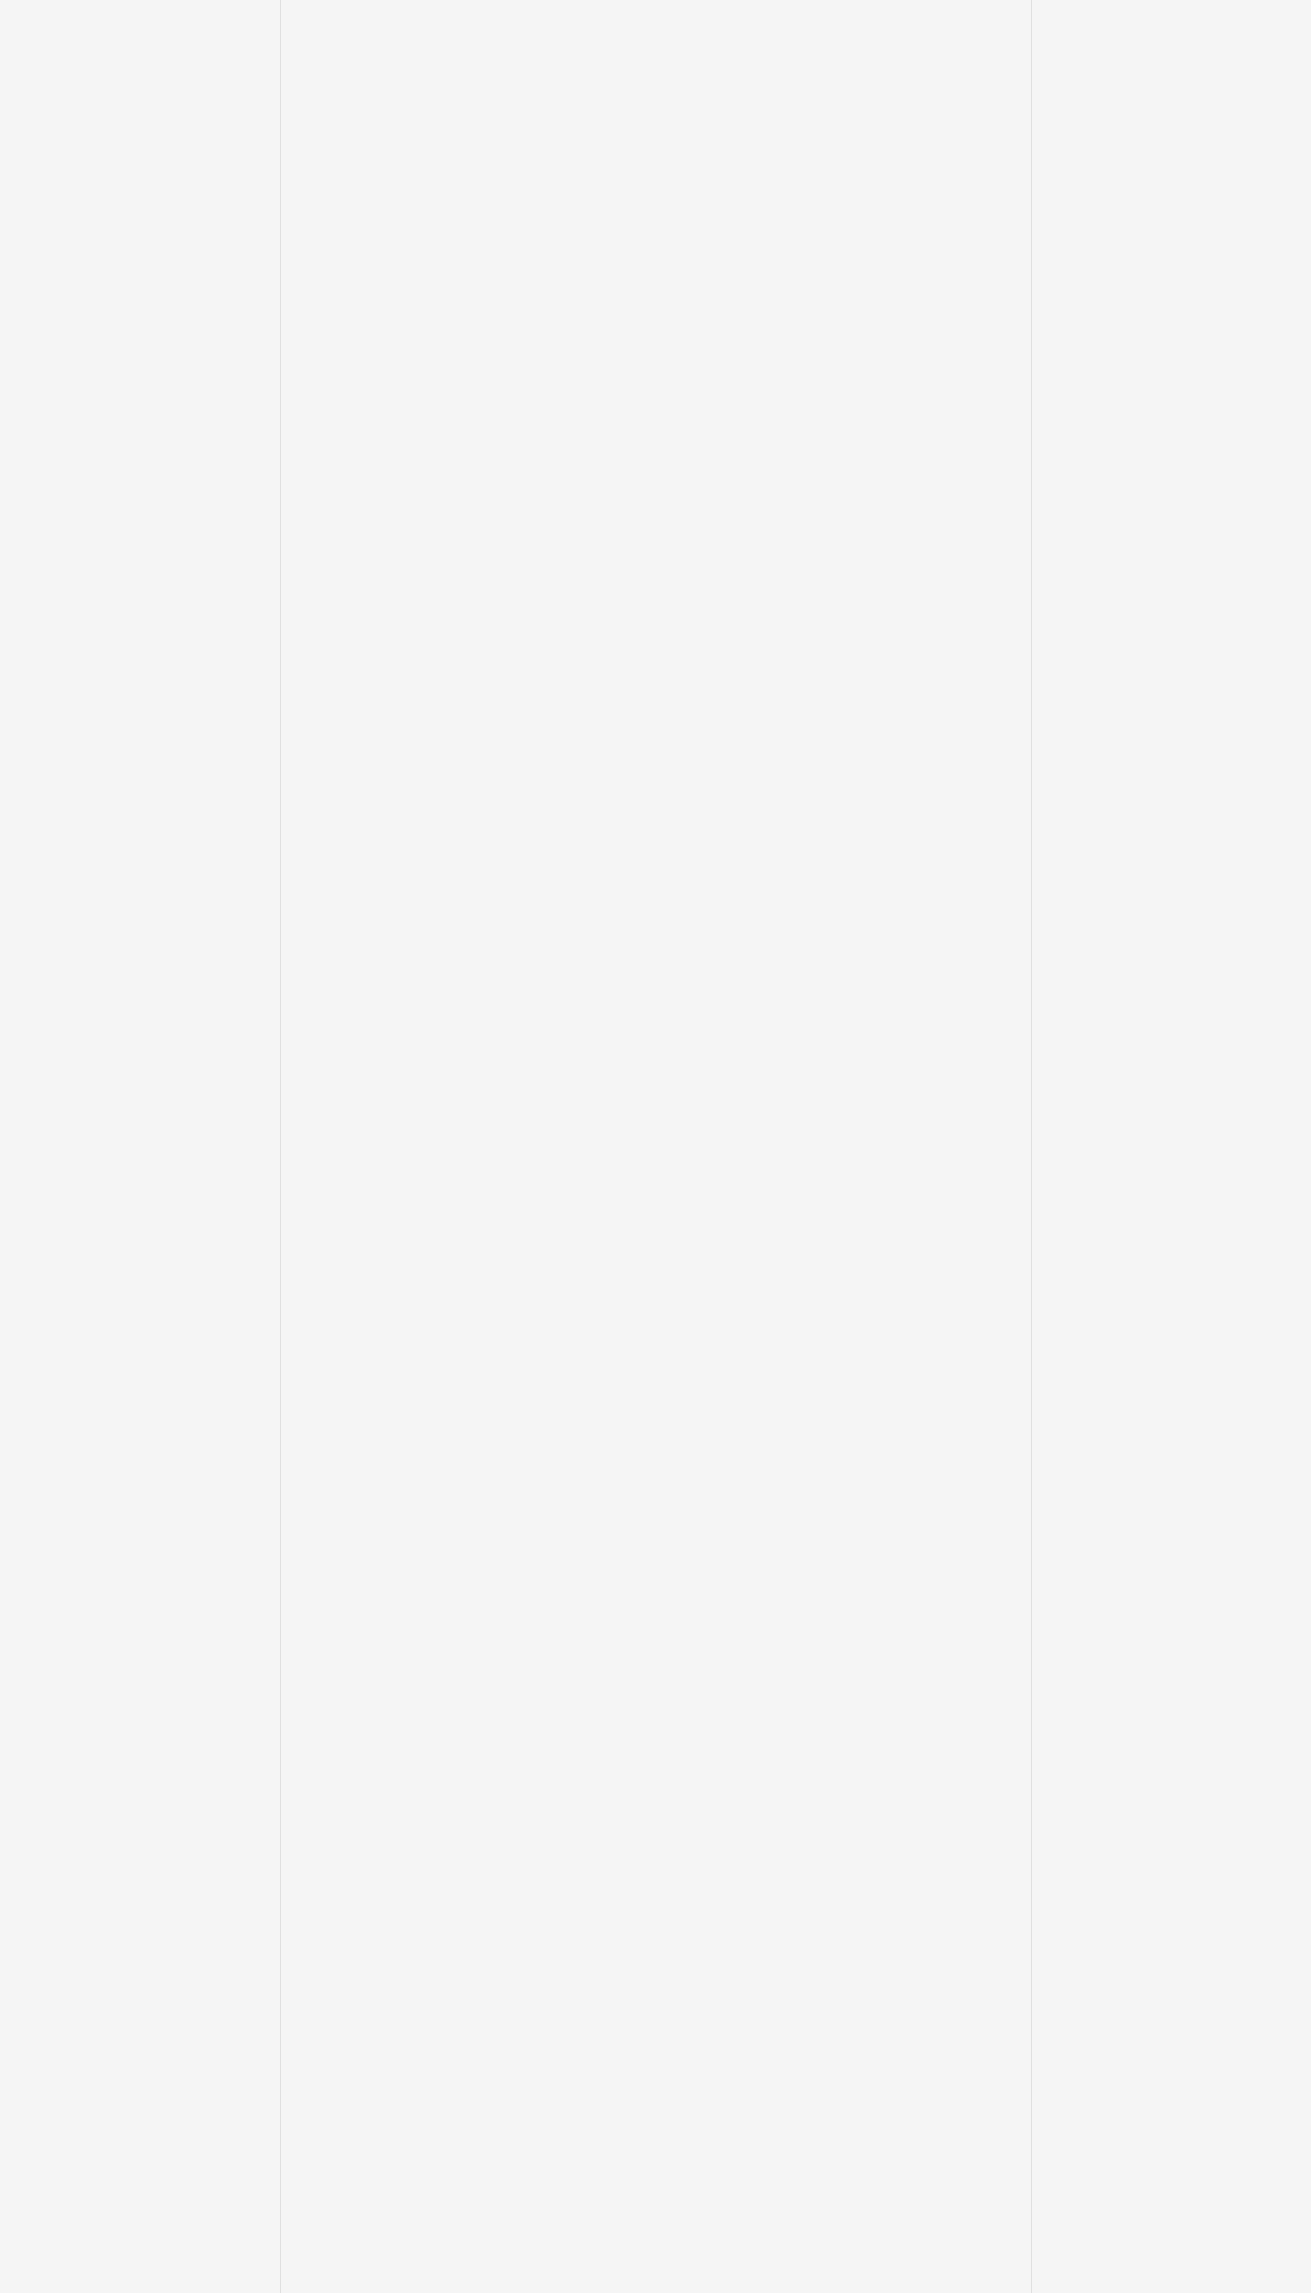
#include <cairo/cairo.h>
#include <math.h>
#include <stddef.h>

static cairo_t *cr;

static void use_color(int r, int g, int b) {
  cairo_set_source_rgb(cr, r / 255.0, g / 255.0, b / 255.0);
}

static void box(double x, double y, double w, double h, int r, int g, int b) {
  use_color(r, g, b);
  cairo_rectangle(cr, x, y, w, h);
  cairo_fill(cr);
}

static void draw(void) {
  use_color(245, 245, 245);
  cairo_paint(cr);
  box(1031, 0, 1, 2293, 224, 224, 224);
  box(280, 0, 1, 2293, 224, 224, 224);
}

int main(void) {
  cairo_surface_t *surface = cairo_image_surface_create(CAIRO_FORMAT_RGB24, 1311, 2293);
  cr = cairo_create(surface);
  cairo_font_options_t *options = cairo_font_options_create();
  cairo_font_options_set_hint_metrics(options, CAIRO_HINT_METRICS_OFF);
  cairo_font_options_set_hint_style(options, CAIRO_HINT_STYLE_NONE);
  cairo_set_font_options(cr, options);
  cairo_set_miter_limit(cr, 4);
  draw();
  cairo_surface_write_to_png(surface, "out.png");
  cairo_font_options_destroy(options);
  cairo_destroy(cr);
  cairo_surface_destroy(surface);
  return 0;
}
